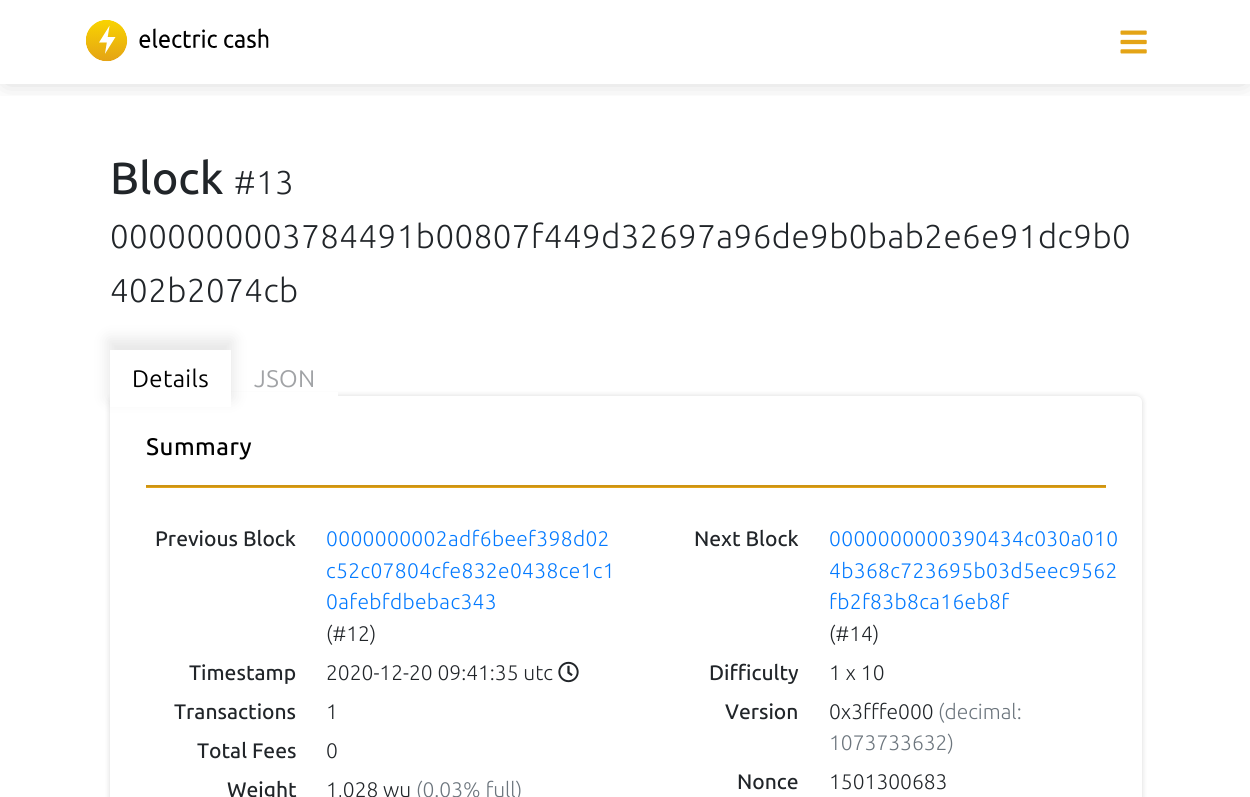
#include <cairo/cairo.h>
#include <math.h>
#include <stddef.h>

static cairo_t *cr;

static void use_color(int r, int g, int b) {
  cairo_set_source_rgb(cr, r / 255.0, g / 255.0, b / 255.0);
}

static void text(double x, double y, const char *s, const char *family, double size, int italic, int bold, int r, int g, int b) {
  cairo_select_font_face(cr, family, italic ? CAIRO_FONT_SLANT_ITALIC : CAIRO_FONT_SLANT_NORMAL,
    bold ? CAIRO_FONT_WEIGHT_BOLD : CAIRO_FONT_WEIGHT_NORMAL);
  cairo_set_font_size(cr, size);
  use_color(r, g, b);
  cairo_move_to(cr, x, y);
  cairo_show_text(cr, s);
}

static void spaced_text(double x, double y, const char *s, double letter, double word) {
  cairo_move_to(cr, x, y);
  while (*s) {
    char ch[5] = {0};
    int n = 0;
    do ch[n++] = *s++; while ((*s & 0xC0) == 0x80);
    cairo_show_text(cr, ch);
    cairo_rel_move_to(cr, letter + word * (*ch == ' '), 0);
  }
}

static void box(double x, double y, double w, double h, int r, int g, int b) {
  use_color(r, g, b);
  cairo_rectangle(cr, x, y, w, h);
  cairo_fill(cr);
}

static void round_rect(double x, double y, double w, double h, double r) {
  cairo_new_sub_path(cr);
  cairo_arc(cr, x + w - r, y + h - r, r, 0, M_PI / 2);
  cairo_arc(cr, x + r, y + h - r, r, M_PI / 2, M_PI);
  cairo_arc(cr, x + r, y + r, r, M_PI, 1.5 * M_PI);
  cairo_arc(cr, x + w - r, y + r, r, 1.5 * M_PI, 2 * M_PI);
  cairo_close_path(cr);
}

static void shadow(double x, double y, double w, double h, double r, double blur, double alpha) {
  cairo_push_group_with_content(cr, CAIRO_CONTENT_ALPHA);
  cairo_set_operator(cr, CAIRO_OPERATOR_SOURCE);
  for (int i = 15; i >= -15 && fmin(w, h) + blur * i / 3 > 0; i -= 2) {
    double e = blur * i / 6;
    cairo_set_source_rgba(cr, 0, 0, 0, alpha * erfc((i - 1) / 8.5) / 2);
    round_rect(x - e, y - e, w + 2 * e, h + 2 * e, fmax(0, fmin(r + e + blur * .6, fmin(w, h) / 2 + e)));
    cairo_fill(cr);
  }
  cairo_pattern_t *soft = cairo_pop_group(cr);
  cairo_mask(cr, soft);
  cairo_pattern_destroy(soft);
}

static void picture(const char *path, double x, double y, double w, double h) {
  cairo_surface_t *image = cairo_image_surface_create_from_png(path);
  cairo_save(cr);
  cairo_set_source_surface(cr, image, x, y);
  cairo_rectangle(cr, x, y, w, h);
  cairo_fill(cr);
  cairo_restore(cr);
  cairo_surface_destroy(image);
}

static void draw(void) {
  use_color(255, 255, 255);
  cairo_paint(cr);
  cairo_save(cr);
  cairo_rectangle(cr, 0, 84, 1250, 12);
  cairo_clip(cr);
  use_color(0, 0, 0);
  shadow(6, 9, 1239, 72, 0, 12, 0.2);
  cairo_restore(cr);
  picture("img_01.png", 86, 20, 183, 42);
  picture("img_02.png", 1120, 30, 27, 24);
  use_color(0, 0, 0);
  shadow(110, 396, 1032, 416, 6, 3, 0.15);
  box(231, 392, 107, 4, 255, 255, 255);
  round_rect(110, 396, 1032, 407, 6);
  cairo_fill(cr);
  use_color(194, 194, 194);
  shadow(108, 339, 125, 60, 0, 7.5, 0.4);
  box(110, 350, 121, 57, 255, 255, 255);
  box(146, 487, 960, 1, 228, 164, 22);
  box(146, 485, 960, 2, 205, 148, 20);
  picture("img_03.png", 558, 661, 21, 22);
  text(110, 194, "Block", "Ubuntu Medium", 45, 0, 0, 33, 37, 41);
  cairo_select_font_face(cr, "Ubuntu Light", CAIRO_FONT_SLANT_NORMAL, CAIRO_FONT_WEIGHT_NORMAL);
  cairo_set_font_size(cr, 33);
  spaced_text(234, 194, "#13", 0.5, 0);
  spaced_text(110, 248, "0000000003784491b00807f449d32697a96de9b0bab2e6e91dc9b0", 0.5, 0);
  spaced_text(110, 302, "402b2074cb", 0.5, 0);
  cairo_select_font_face(cr, "Ubuntu", CAIRO_FONT_SLANT_NORMAL, CAIRO_FONT_WEIGHT_NORMAL);
  cairo_set_font_size(cr, 24);
  use_color(0, 0, 0);
  spaced_text(132, 387, "Details", 0.35, 0);
  use_color(161, 163, 166);
  spaced_text(254, 387, "JSON", 0.35, 0);
  cairo_select_font_face(cr, "Ubuntu Medium", CAIRO_FONT_SLANT_NORMAL, CAIRO_FONT_WEIGHT_NORMAL);
  use_color(0, 0, 0);
  spaced_text(146, 455, "Summary", 0.5, 0);
  text(155, 546, "Previous Block", "Ubuntu Medium", 21, 0, 0, 33, 37, 41);
  cairo_select_font_face(cr, "Ubuntu Light", CAIRO_FONT_SLANT_NORMAL, CAIRO_FONT_WEIGHT_NORMAL);
  use_color(4, 122, 255);
  spaced_text(326, 546, "0000000002adf6beef398d02", 0.35, 0);
  spaced_text(326, 578, "c52c07804cfe832e0438ce1c1", 0.35, 0);
  spaced_text(326, 609, "0afebfdbebac343", 0.35, 0);
  text(326, 641, "(#12)", "Ubuntu Light", 21, 0, 0, 33, 37, 41);
  text(189, 680, "Timestamp", "Ubuntu Medium", 21, 0, 0, 33, 37, 41);
  text(326, 680, "2020-12-20 09:41:35 utc", "Ubuntu Light", 21, 0, 0, 33, 37, 41);
  text(174, 719, "Transactions", "Ubuntu Medium", 21, 0, 0, 33, 37, 41);
  text(326, 719, "1", "Ubuntu Light", 21, 0, 0, 33, 37, 41);
  text(197, 758, "Total Fees", "Ubuntu Medium", 21, 0, 0, 33, 37, 41);
  text(326, 758, "0", "Ubuntu Light", 21, 0, 0, 33, 37, 41);
  text(227, 797, "Weight", "Ubuntu Medium", 21, 0, 0, 33, 37, 41);
  text(326, 797, "1,028 wu", "Ubuntu Light", 21, 0, 0, 33, 37, 41);
  text(416, 797, "(0.03% full)", "Ubuntu Light", 21, 0, 0, 108, 117, 125);
  text(694, 546, "Next Block", "Ubuntu Medium", 21, 0, 0, 33, 37, 41);
  cairo_select_font_face(cr, "Ubuntu Light", CAIRO_FONT_SLANT_NORMAL, CAIRO_FONT_WEIGHT_NORMAL);
  use_color(4, 122, 255);
  spaced_text(829, 546, "0000000000390434c030a010", 0.35, 0);
  spaced_text(829, 578, "4b368c723695b03d5eec9562", 0.35, 0);
  spaced_text(829, 609, "fb2f83b8ca16eb8f", 0.35, 0);
  text(829, 641, "(#14)", "Ubuntu Light", 21, 0, 0, 33, 37, 41);
  text(709, 680, "Difficulty", "Ubuntu Medium", 21, 0, 0, 33, 37, 41);
  text(829, 680, "1 x 10", "Ubuntu Light", 21, 0, 0, 33, 37, 41);
  text(725, 719, "Version", "Ubuntu Medium", 21, 0, 0, 33, 37, 41);
  text(829, 719, "0x3fffe000", "Ubuntu Light", 21, 0, 0, 33, 37, 41);
  text(938, 719, "(decimal:", "Ubuntu Light", 21, 0, 0, 108, 117, 125);
  text(829, 750, "1073733632)", "Ubuntu Light", 21, 0, 0, 108, 117, 125);
  text(737, 789, "Nonce", "Ubuntu Medium", 21, 0, 0, 33, 37, 41);
  text(829, 789, "1501300683", "Ubuntu Light", 21, 0, 0, 33, 37, 41);
}

int main(void) {
  cairo_surface_t *surface = cairo_image_surface_create(CAIRO_FORMAT_RGB24, 1250, 797);
  cr = cairo_create(surface);
  cairo_font_options_t *options = cairo_font_options_create();
  cairo_font_options_set_hint_metrics(options, CAIRO_HINT_METRICS_OFF);
  cairo_font_options_set_hint_style(options, CAIRO_HINT_STYLE_NONE);
  cairo_set_font_options(cr, options);
  cairo_set_miter_limit(cr, 4);
  draw();
  cairo_surface_write_to_png(surface, "out.png");
  cairo_font_options_destroy(options);
  cairo_destroy(cr);
  cairo_surface_destroy(surface);
  return 0;
}
